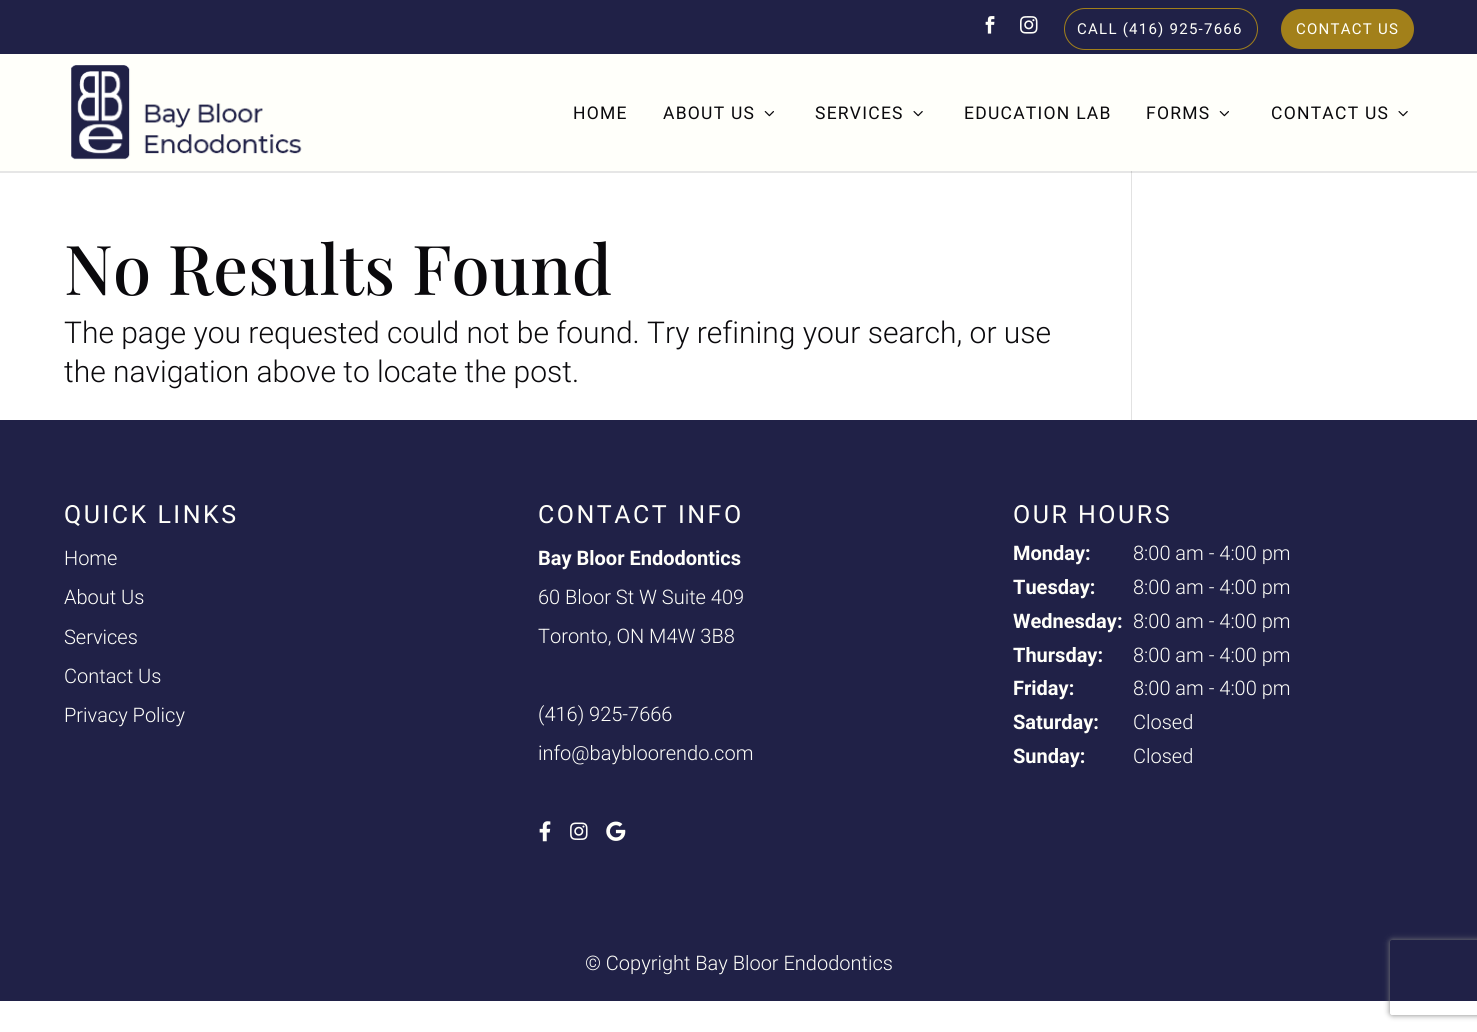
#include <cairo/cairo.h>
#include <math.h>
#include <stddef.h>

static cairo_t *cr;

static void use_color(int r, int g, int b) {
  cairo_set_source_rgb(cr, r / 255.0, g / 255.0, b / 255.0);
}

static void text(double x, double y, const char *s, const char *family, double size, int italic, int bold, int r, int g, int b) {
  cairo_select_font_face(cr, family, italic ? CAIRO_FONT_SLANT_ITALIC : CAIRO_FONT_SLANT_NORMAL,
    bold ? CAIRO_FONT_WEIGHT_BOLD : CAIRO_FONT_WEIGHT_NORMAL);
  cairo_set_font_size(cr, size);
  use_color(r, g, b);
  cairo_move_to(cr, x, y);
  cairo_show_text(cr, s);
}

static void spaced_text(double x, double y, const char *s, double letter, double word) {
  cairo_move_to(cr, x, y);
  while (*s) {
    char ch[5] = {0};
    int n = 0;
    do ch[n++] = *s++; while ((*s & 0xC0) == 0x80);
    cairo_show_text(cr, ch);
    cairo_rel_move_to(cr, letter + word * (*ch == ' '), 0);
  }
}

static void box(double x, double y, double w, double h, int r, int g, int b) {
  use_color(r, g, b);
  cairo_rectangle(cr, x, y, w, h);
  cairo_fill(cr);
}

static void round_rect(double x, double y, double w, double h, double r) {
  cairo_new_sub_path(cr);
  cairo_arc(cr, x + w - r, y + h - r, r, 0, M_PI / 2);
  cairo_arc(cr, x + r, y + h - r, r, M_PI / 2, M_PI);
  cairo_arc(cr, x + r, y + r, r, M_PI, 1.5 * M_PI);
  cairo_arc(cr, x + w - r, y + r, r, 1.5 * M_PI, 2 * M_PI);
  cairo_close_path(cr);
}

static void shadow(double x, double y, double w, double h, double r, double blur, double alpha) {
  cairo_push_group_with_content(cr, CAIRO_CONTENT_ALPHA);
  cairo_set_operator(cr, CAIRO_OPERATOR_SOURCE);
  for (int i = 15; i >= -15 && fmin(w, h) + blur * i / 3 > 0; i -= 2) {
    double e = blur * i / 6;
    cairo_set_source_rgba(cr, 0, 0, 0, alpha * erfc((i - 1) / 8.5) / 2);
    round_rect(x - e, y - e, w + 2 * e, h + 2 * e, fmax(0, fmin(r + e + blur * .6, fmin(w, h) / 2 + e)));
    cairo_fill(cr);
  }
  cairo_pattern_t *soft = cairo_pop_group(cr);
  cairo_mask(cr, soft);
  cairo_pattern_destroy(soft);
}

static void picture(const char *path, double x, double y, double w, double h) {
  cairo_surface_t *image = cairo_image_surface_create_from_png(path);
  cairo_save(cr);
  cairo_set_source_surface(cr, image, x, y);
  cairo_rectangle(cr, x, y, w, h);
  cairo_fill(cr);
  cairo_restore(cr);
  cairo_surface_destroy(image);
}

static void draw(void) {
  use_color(255, 255, 255);
  cairo_paint(cr);
  box(0, 0, 1477, 54, 32, 33, 71);
  picture("img_01.png", 985, 16, 10, 18);
  picture("img_02.png", 1020, 16, 18, 18);
  round_rect(1064.5, 8.5, 193, 41, 20.5);
  use_color(162, 128, 26);
  cairo_set_line_width(cr, 1);
  cairo_stroke(cr);
  round_rect(1281, 9, 133, 40, 20);
  cairo_fill(cr);
  box(1131, 171, 1, 249, 226, 226, 226);
  cairo_set_source_rgba(cr, 0, 0, 0, 0.1);
  cairo_new_path(cr);
  cairo_move_to(cr, 0, 171);
  cairo_line_to(cr, 0, 173);
  cairo_line_to(cr, 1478, 173);
  cairo_line_to(cr, 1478, 55);
  cairo_line_to(cr, 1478, 171);
  cairo_close_path(cr);
  cairo_fill(cr);
  box(0, 54, 1477, 117, 255, 255, 250);
  picture("img_03.png", 71, 65, 231, 95);
  picture("img_04.png", 764, 111, 10, 6);
  picture("img_05.png", 913, 111, 10, 6);
  picture("img_04.png", 1219, 111, 10, 6);
  picture("img_05.png", 1398, 111, 10, 6);
  box(0, 420, 1477, 581, 32, 33, 71);
  picture("img_06.png", 539, 821, 12, 21);
  picture("img_07.png", 570, 822, 18, 18);
  picture("img_08.png", 606, 821, 20, 20);
  cairo_save(cr);
  cairo_set_fill_rule(cr, CAIRO_FILL_RULE_EVEN_ODD);
  cairo_new_path(cr);
  cairo_move_to(cr, 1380, 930);
  cairo_line_to(cr, 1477, 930);
  cairo_line_to(cr, 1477, 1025);
  cairo_line_to(cr, 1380, 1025);
  cairo_close_path(cr);
  cairo_move_to(cr, 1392.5, 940);
  cairo_line_to(cr, 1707.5, 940);
  cairo_curve_to(cr, 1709, 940, 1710, 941, 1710, 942.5);
  cairo_line_to(cr, 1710, 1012.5);
  cairo_curve_to(cr, 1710, 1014, 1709, 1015, 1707.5, 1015);
  cairo_line_to(cr, 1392.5, 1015);
  cairo_curve_to(cr, 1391, 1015, 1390, 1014, 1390, 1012.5);
  cairo_line_to(cr, 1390, 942.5);
  cairo_curve_to(cr, 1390, 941, 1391, 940, 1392.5, 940);
  cairo_close_path(cr);
  cairo_clip(cr);
  use_color(128, 128, 128);
  shadow(1390, 940, 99, 75, 2.5, 3, 1);
  cairo_restore(cr);
  cairo_select_font_face(cr, "Roboto", CAIRO_FONT_SLANT_NORMAL, CAIRO_FONT_WEIGHT_NORMAL);
  cairo_set_font_size(cr, 15);
  use_color(255, 255, 250);
  spaced_text(1077, 34, "CALL (416) 925-7666", 1.25, 0);
  spaced_text(1296, 34, "CONTACT US", 1.25, 0);
  cairo_set_font_size(cr, 17.5);
  use_color(10, 9, 12);
  spaced_text(573, 119, "HOME", 1.25, 0);
  spaced_text(663, 119, "ABOUT US", 1.25, 0);
  spaced_text(815, 119, "SERVICES", 1.25, 0);
  spaced_text(964, 119, "EDUCATION LAB", 1.25, 0);
  spaced_text(1146, 119, "FORMS", 1.25, 0);
  spaced_text(1271, 119, "CONTACT US", 1.25, 0);
  text(64, 295, "No Results Found", "Playfair Display Medium", 68.75, 0, 0, 10, 9, 12);
  text(64, 343, "The page you requested could not be found. Try refining your search, or use", "Roboto Light", 30, 0, 0, 10, 9, 12);
  text(64, 382, "the navigation above to locate the post.", "Roboto Light", 30, 0, 0, 10, 9, 12);
  cairo_select_font_face(cr, "Roboto", CAIRO_FONT_SLANT_NORMAL, CAIRO_FONT_WEIGHT_NORMAL);
  cairo_set_font_size(cr, 25);
  use_color(255, 255, 250);
  spaced_text(64, 523, "QUICK LINKS", 2.5, 0);
  text(64, 565, "Home", "Roboto Light", 20, 0, 0, 255, 255, 250);
  text(64, 604, "About Us", "Roboto Light", 20, 0, 0, 255, 255, 250);
  text(64, 644, "Services", "Roboto Light", 20, 0, 0, 255, 255, 250);
  text(64, 683, "Contact Us", "Roboto Light", 20, 0, 0, 255, 255, 250);
  text(64, 722, "Privacy Policy", "Roboto Light", 20, 0, 0, 255, 255, 250);
  cairo_select_font_face(cr, "Roboto", CAIRO_FONT_SLANT_NORMAL, CAIRO_FONT_WEIGHT_NORMAL);
  cairo_set_font_size(cr, 25);
  spaced_text(538, 523, "CONTACT INFO", 2.5, 0);
  text(538, 565, "Bay Bloor Endodontics", "Roboto", 20, 0, 1, 255, 255, 250);
  text(538, 604, "60 Bloor St W Suite 409", "Roboto Light", 20, 0, 0, 255, 255, 250);
  text(538, 643, "Toronto, ON M4W 3B8", "Roboto Light", 20, 0, 0, 255, 255, 250);
  text(538, 721, "(416) 925-7666", "Roboto Light", 20, 0, 0, 255, 255, 250);
  text(538, 760, "info@baybloorendo.com", "Roboto Light", 20, 0, 0, 255, 255, 250);
  cairo_select_font_face(cr, "Roboto", CAIRO_FONT_SLANT_NORMAL, CAIRO_FONT_WEIGHT_NORMAL);
  cairo_set_font_size(cr, 25);
  spaced_text(1013, 523, "OUR HOURS", 2.5, 0);
  text(1013, 560, "Monday:", "Roboto", 20, 0, 1, 255, 255, 250);
  text(1133, 560, "8:00 am - 4:00 pm", "Roboto Light", 20, 0, 0, 255, 255, 250);
  text(1013, 594, "Tuesday:", "Roboto", 20, 0, 1, 255, 255, 250);
  text(1133, 594, "8:00 am - 4:00 pm", "Roboto Light", 20, 0, 0, 255, 255, 250);
  text(1013, 628, "Wednesday:", "Roboto", 20, 0, 1, 255, 255, 250);
  text(1133, 628, "8:00 am - 4:00 pm", "Roboto Light", 20, 0, 0, 255, 255, 250);
  text(1013, 662, "Thursday:", "Roboto", 20, 0, 1, 255, 255, 250);
  text(1133, 662, "8:00 am - 4:00 pm", "Roboto Light", 20, 0, 0, 255, 255, 250);
  text(1013, 695, "Friday:", "Roboto", 20, 0, 1, 255, 255, 250);
  text(1133, 695, "8:00 am - 4:00 pm", "Roboto Light", 20, 0, 0, 255, 255, 250);
  text(1013, 729, "Saturday:", "Roboto", 20, 0, 1, 255, 255, 250);
  text(1133, 729, "Closed", "Roboto Light", 20, 0, 0, 255, 255, 250);
  text(1013, 763, "Sunday:", "Roboto", 20, 0, 1, 255, 255, 250);
  text(1133, 763, "Closed", "Roboto Light", 20, 0, 0, 255, 255, 250);
  text(585, 970, "© Copyright Bay Bloor Endodontics", "Roboto Light", 20, 0, 0, 255, 255, 250);
}

int main(void) {
  cairo_surface_t *surface = cairo_image_surface_create(CAIRO_FORMAT_RGB24, 1477, 1032);
  cr = cairo_create(surface);
  cairo_font_options_t *options = cairo_font_options_create();
  cairo_font_options_set_hint_metrics(options, CAIRO_HINT_METRICS_OFF);
  cairo_font_options_set_hint_style(options, CAIRO_HINT_STYLE_NONE);
  cairo_set_font_options(cr, options);
  cairo_set_miter_limit(cr, 4);
  draw();
  cairo_surface_write_to_png(surface, "out.png");
  cairo_font_options_destroy(options);
  cairo_destroy(cr);
  cairo_surface_destroy(surface);
  return 0;
}
